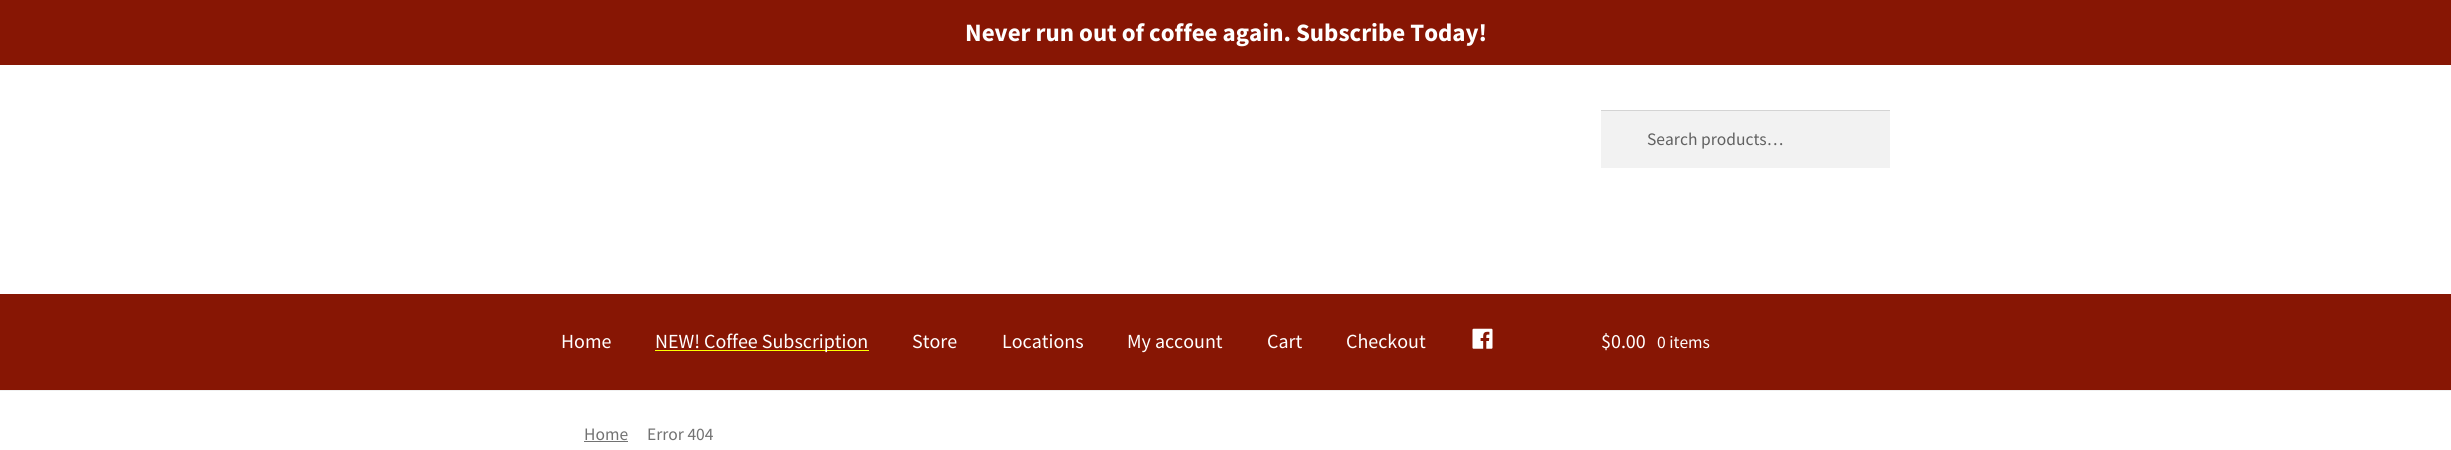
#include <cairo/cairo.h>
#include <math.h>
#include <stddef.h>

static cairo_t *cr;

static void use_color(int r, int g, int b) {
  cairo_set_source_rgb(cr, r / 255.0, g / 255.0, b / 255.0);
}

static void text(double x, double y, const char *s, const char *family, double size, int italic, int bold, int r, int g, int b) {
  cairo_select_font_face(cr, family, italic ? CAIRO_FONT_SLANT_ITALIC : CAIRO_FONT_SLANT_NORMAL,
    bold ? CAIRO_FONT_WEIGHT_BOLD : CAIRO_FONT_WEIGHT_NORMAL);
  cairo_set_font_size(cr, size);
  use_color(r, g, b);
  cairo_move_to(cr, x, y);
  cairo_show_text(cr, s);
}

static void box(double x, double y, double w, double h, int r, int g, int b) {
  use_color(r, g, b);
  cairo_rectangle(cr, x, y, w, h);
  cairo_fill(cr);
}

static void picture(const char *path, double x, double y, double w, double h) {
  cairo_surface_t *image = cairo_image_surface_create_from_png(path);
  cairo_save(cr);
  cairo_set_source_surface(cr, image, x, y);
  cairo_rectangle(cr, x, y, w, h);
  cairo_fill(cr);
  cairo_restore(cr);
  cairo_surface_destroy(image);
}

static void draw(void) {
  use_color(255, 255, 255);
  cairo_paint(cr);
  box(0, 0, 2451, 65, 135, 22, 4);
  box(0, 390, 2451, 1, 240, 240, 240);
  box(1601, 111, 289, 57, 242, 242, 242);
  box(1601, 110, 289, 1, 212, 212, 212);
  box(0, 294, 2451, 96, 135, 22, 4);
  box(655, 350, 214, 1, 255, 255, 0);
  picture("img_01.png", 1472, 328, 21, 21);
  box(584, 441, 44, 1, 114, 114, 114);
  text(965, 41, "Never run out of coffee again. Subscribe Today!", "Source Sans Pro", 25, 0, 1, 255, 255, 255);
  text(1647, 145, "Search products…", "Source Sans Pro", 17.5, 0, 0, 97, 97, 97);
  text(561, 348, "Home", "Source Sans Pro", 20, 0, 0, 255, 255, 255);
  text(655, 348, "NEW! Coffee Subscription", "Source Sans Pro", 20, 0, 0, 255, 255, 255);
  text(912, 348, "Store", "Source Sans Pro", 20, 0, 0, 255, 255, 255);
  text(1002, 348, "Locations", "Source Sans Pro", 20, 0, 0, 255, 255, 255);
  text(1127, 348, "My account", "Source Sans Pro", 20, 0, 0, 255, 255, 255);
  text(1267, 348, "Cart", "Source Sans Pro", 20, 0, 0, 255, 255, 255);
  text(1346, 348, "Checkout", "Source Sans Pro", 20, 0, 0, 255, 255, 255);
  text(1601, 348, "$0.00", "Source Sans Pro", 20, 0, 0, 255, 255, 255);
  text(1657, 348, "0 items", "Source Sans Pro", 17.5, 0, 0, 255, 255, 255);
  text(584, 440, "Home", "Source Sans Pro", 17.5, 0, 0, 114, 114, 114);
  text(647, 440, "Error 404", "Source Sans Pro", 17.5, 0, 0, 114, 114, 114);
}

int main(void) {
  cairo_surface_t *surface = cairo_image_surface_create(CAIRO_FORMAT_RGB24, 2451, 450);
  cr = cairo_create(surface);
  cairo_font_options_t *options = cairo_font_options_create();
  cairo_font_options_set_hint_metrics(options, CAIRO_HINT_METRICS_OFF);
  cairo_font_options_set_hint_style(options, CAIRO_HINT_STYLE_NONE);
  cairo_set_font_options(cr, options);
  cairo_set_miter_limit(cr, 4);
  draw();
  cairo_surface_write_to_png(surface, "out.png");
  cairo_font_options_destroy(options);
  cairo_destroy(cr);
  cairo_surface_destroy(surface);
  return 0;
}
